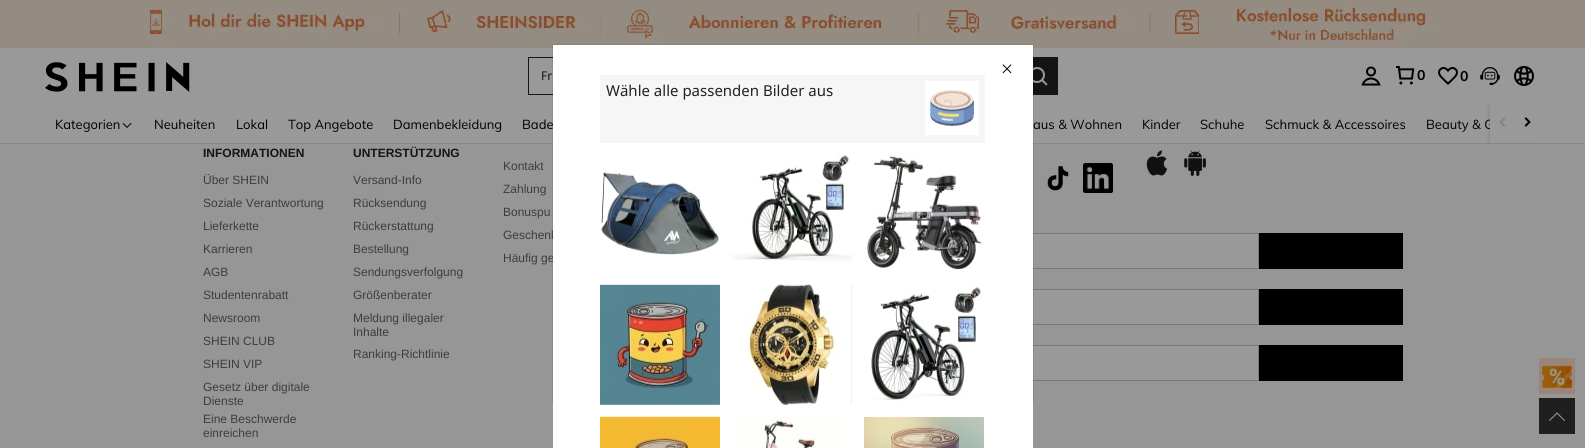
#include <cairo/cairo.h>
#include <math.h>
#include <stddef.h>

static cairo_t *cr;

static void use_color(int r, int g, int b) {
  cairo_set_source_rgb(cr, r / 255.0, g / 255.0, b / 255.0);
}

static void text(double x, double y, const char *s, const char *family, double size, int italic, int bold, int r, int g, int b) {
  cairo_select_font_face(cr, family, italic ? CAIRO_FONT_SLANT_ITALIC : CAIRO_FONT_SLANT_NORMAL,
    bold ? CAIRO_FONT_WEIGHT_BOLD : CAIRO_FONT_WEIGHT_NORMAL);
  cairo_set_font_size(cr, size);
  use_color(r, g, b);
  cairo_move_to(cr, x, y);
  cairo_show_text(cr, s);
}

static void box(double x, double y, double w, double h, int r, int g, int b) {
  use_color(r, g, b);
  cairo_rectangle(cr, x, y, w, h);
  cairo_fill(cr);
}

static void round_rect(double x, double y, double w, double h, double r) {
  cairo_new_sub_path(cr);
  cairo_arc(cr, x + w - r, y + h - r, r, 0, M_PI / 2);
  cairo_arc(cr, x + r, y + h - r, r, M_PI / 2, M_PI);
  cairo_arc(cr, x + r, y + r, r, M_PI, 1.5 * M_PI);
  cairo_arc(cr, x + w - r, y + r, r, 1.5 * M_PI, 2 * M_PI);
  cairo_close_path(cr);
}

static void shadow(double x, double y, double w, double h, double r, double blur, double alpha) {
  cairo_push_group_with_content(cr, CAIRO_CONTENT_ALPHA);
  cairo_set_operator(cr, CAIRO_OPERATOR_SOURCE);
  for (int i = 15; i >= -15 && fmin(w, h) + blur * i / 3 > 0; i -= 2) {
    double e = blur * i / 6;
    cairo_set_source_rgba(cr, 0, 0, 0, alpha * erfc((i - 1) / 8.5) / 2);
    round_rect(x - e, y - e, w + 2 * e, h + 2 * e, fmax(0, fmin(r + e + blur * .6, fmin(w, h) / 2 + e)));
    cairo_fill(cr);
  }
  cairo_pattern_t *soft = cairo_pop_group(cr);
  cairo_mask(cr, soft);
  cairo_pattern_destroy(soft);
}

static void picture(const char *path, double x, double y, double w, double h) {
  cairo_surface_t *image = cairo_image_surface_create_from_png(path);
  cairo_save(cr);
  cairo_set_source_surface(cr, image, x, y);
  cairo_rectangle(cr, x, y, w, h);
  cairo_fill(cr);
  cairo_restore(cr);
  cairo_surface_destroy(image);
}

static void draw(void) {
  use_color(150, 150, 150);
  cairo_paint(cr);
  picture("img_01.png", 0, 0, 1585, 48);
  box(0, 104, 1585, 39, 153, 153, 153);
  box(0, 143, 1585, 1, 137, 137, 137);
  use_color(0, 0, 0);
  shadow(1488, 104, 50, 39, 0, 1.5, 0.08);
  box(0, 48, 1585, 56, 153, 153, 153);
  picture("img_02.png", 45, 62, 145, 30);
  box(528, 57, 25, 1, 20, 20, 20);
  box(528, 94, 25, 1, 20, 20, 20);
  box(528, 57, 1, 38, 20, 20, 20);
  box(1033, 57, 25, 38, 20, 20, 20);
  picture("img_03.png", 1033, 67, 15, 19);
  picture("img_04.png", 1361, 66, 20, 20);
  picture("img_05.png", 1396, 66, 19, 19);
  picture("img_06.png", 1438, 67, 20, 18);
  picture("img_07.png", 1480, 67, 20, 19);
  picture("img_08.png", 1514, 66, 20, 20);
  picture("img_09.png", 122, 123, 10, 5);
  picture("img_12.png", 1047, 166, 22, 25);
  picture("img_13.png", 1083, 163, 30, 30);
  picture("img_14.png", 1146, 150, 22, 26);
  picture("img_15.png", 1184, 150, 22, 26);
  box(1033, 234, 225, 34, 153, 153, 153);
  cairo_rectangle(cr, 803.5, 233.5, 455, 35);
  use_color(122, 122, 122);
  cairo_set_line_width(cr, 1);
  cairo_stroke(cr);
  box(1259, 233, 144, 36, 0, 0, 0);
  box(1033, 290, 225, 34, 153, 153, 153);
  cairo_rectangle(cr, 883.5, 289.5, 375, 35);
  use_color(122, 122, 122);
  cairo_stroke(cr);
  box(1259, 289, 144, 36, 0, 0, 0);
  box(1033, 346, 225, 34, 153, 153, 153);
  cairo_rectangle(cr, 883.5, 345.5, 375, 35);
  use_color(122, 122, 122);
  cairo_stroke(cr);
  box(1259, 345, 144, 36, 0, 0, 0);
  box(1539, 358, 36, 36, 153, 133, 121);
  picture("img_16.png", 1542, 365, 30, 23);
  box(1539, 398, 36, 36, 31, 31, 31);
  picture("img_17.png", 1549, 412, 16, 9);
  use_color(0, 0, 0);
  shadow(553, 45, 480, 358, 0, 0.5, 0.3);
  text(541, 80, "Fr", "Noto Sans", 12, 0, 0, 20, 20, 20);
  text(1417, 80, "0", "Muli", 14, 0, 1, 0, 0, 0);
  text(1460, 81, "0", "Muli", 14, 0, 1, 0, 0, 0);
  text(55, 129, "Kategorien", "Muli", 13, 0, 0, 0, 0, 0);
  text(154, 129, "Neuheiten", "Muli", 13, 0, 0, 0, 0, 0);
  text(236, 129, "Lokal", "Muli", 13, 0, 0, 0, 0, 0);
  text(288, 129, "Top Angebote", "Muli", 13, 0, 0, 0, 0, 0);
  text(393, 129, "Damenbekleidung", "Muli", 13, 0, 0, 0, 0, 0);
  text(522, 129, "Bade", "Muli", 13, 0, 0, 0, 0, 0);
  text(1033, 129, "aus & Wohnen", "Muli", 13, 0, 0, 0, 0, 0);
  text(1142, 129, "Kinder", "Muli", 13, 0, 0, 0, 0, 0);
  text(1200, 129, "Schuhe", "Muli", 13, 0, 0, 0, 0, 0);
  text(1265, 129, "Schmuck & Accessoires", "Muli", 13, 0, 0, 0, 0, 0);
  text(1426, 129, "Beauty & G", "Muli", 13, 0, 0, 0, 0, 0);
  box(1490, 104, 49, 39, 153, 153, 153);
  picture("img_10.png", 1499, 117, 7, 10);
  picture("img_11.png", 1524, 117, 7, 10);
  text(203, 157, "INFORMATIONEN", "Liberation Sans", 12, 0, 1, 20, 20, 20);
  text(203, 184, "Über SHEIN", "Liberation Sans", 12, 0, 0, 61, 61, 61);
  text(203, 207, "Soziale Verantwortung", "Liberation Sans", 12, 0, 0, 61, 61, 61);
  text(203, 230, "Lieferkette", "Liberation Sans", 12, 0, 0, 61, 61, 61);
  text(203, 253, "Karrieren", "Liberation Sans", 12, 0, 0, 61, 61, 61);
  text(203, 276, "AGB", "Liberation Sans", 12, 0, 0, 61, 61, 61);
  text(203, 299, "Studentenrabatt", "Liberation Sans", 12, 0, 0, 61, 61, 61);
  text(203, 322, "Newsroom", "Liberation Sans", 12, 0, 0, 61, 61, 61);
  text(203, 345, "SHEIN CLUB", "Liberation Sans", 12, 0, 0, 61, 61, 61);
  text(203, 368, "SHEIN VIP", "Liberation Sans", 12, 0, 0, 61, 61, 61);
  text(203, 391, "Gesetz über digitale", "Liberation Sans", 12, 0, 0, 61, 61, 61);
  text(203, 405, "Dienste", "Liberation Sans", 12, 0, 0, 61, 61, 61);
  text(203, 423, "Eine Beschwerde", "Liberation Sans", 12, 0, 0, 61, 61, 61);
  text(203, 437, "einreichen", "Liberation Sans", 12, 0, 0, 61, 61, 61);
  text(353, 157, "UNTERSTÜTZUNG", "Liberation Sans", 12, 0, 1, 20, 20, 20);
  text(353, 184, "Versand-Info", "Liberation Sans", 12, 0, 0, 61, 61, 61);
  text(353, 207, "Rücksendung", "Liberation Sans", 12, 0, 0, 61, 61, 61);
  text(353, 230, "Rückerstattung", "Liberation Sans", 12, 0, 0, 61, 61, 61);
  text(353, 253, "Bestellung", "Liberation Sans", 12, 0, 0, 61, 61, 61);
  text(353, 276, "Sendungsverfolgung", "Liberation Sans", 12, 0, 0, 61, 61, 61);
  text(353, 299, "Größenberater", "Liberation Sans", 12, 0, 0, 61, 61, 61);
  text(353, 322, "Meldung illegaler", "Liberation Sans", 12, 0, 0, 61, 61, 61);
  text(353, 336, "Inhalte", "Liberation Sans", 12, 0, 0, 61, 61, 61);
  text(353, 358, "Ranking-Richtlinie", "Liberation Sans", 12, 0, 0, 61, 61, 61);
  text(503, 170, "Kontakt", "Liberation Sans", 12, 0, 0, 61, 61, 61);
  text(503, 193, "Zahlung", "Liberation Sans", 12, 0, 0, 61, 61, 61);
  text(503, 216, "Bonuspu", "Liberation Sans", 12, 0, 0, 61, 61, 61);
  text(503, 239, "Geschenk", "Liberation Sans", 12, 0, 0, 61, 61, 61);
  text(503, 262, "Häufig ge", "Liberation Sans", 12, 0, 0, 61, 61, 61);
  box(553, 45, 480, 403, 255, 255, 255);
  picture("img_18.png", 1002, 64, 10, 10);
  box(600, 75, 385, 68, 246, 246, 246);
  text(606, 96, "Wähle alle passenden Bilder aus", "Noto Sans", 15, 0, 0, 34, 34, 34);
  box(925, 81, 54, 54, 255, 255, 255);
  picture("img_19.png", 930, 89, 44, 37);
  picture("img_20.png", 601, 172, 118, 83);
  picture("img_21.png", 732, 154, 120, 111);
  picture("img_22.png", 866, 153, 118, 120);
  picture("img_23.png", 600, 284, 120, 121);
  picture("img_24.png", 748, 284, 104, 121);
  picture("img_25.png", 871, 286, 113, 117);
  picture("img_26.png", 600, 416, 120, 32);
  picture("img_27.png", 736, 417, 104, 31);
  picture("img_28.png", 864, 417, 120, 31);
}

int main(void) {
  cairo_surface_t *surface = cairo_image_surface_create(CAIRO_FORMAT_RGB24, 1585, 448);
  cr = cairo_create(surface);
  cairo_font_options_t *options = cairo_font_options_create();
  cairo_font_options_set_hint_metrics(options, CAIRO_HINT_METRICS_OFF);
  cairo_font_options_set_hint_style(options, CAIRO_HINT_STYLE_NONE);
  cairo_set_font_options(cr, options);
  cairo_set_miter_limit(cr, 4);
  draw();
  cairo_surface_write_to_png(surface, "out.png");
  cairo_font_options_destroy(options);
  cairo_destroy(cr);
  cairo_surface_destroy(surface);
  return 0;
}
